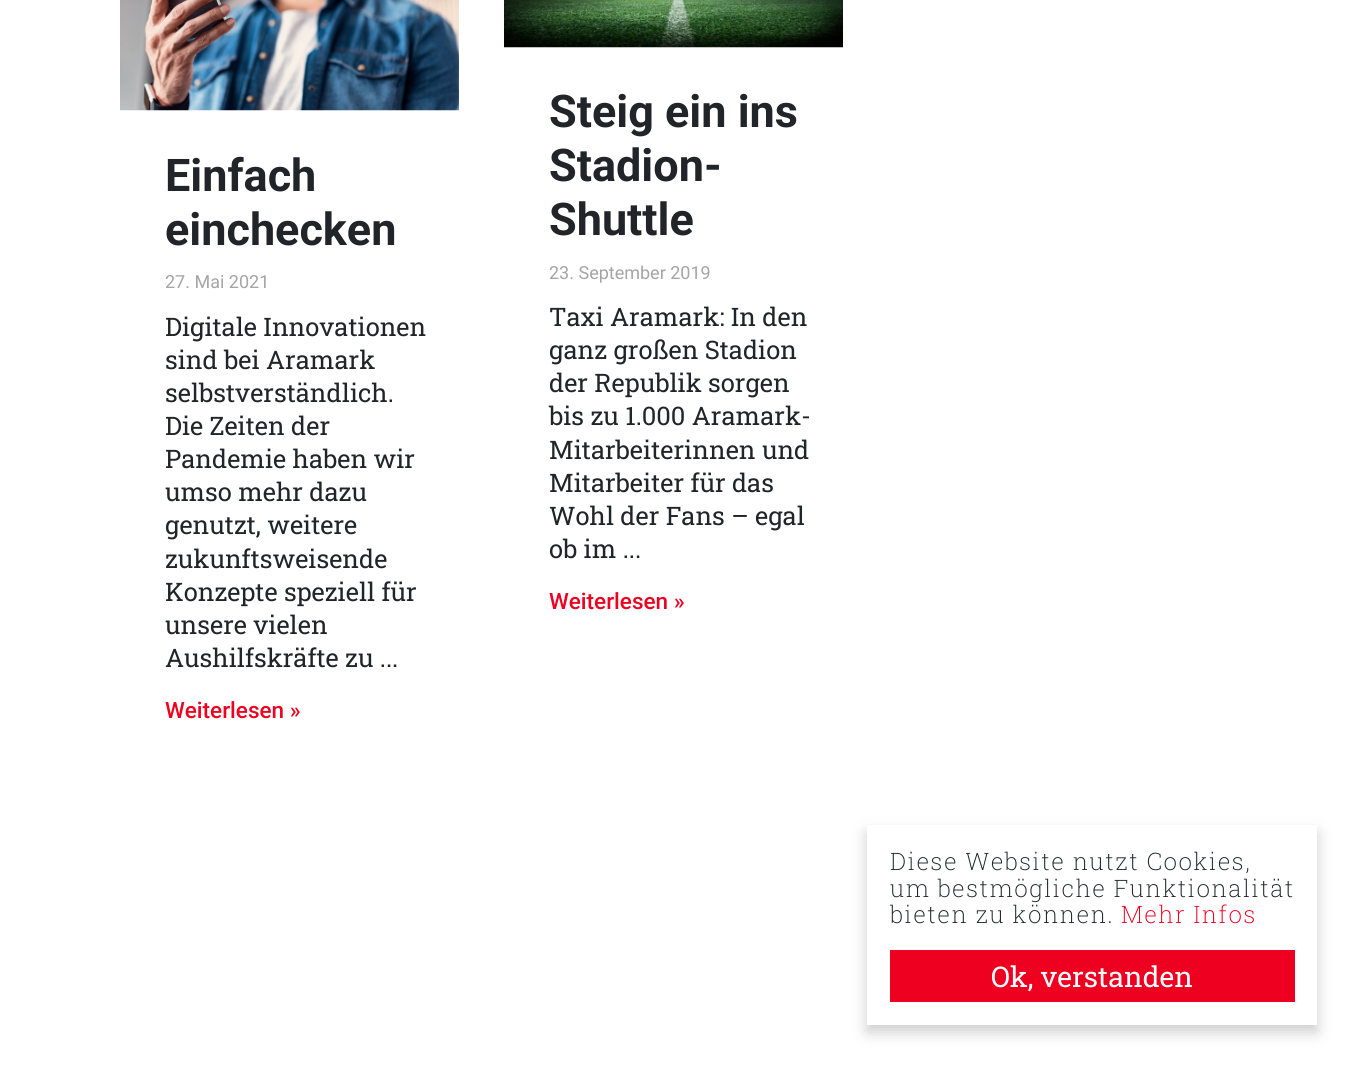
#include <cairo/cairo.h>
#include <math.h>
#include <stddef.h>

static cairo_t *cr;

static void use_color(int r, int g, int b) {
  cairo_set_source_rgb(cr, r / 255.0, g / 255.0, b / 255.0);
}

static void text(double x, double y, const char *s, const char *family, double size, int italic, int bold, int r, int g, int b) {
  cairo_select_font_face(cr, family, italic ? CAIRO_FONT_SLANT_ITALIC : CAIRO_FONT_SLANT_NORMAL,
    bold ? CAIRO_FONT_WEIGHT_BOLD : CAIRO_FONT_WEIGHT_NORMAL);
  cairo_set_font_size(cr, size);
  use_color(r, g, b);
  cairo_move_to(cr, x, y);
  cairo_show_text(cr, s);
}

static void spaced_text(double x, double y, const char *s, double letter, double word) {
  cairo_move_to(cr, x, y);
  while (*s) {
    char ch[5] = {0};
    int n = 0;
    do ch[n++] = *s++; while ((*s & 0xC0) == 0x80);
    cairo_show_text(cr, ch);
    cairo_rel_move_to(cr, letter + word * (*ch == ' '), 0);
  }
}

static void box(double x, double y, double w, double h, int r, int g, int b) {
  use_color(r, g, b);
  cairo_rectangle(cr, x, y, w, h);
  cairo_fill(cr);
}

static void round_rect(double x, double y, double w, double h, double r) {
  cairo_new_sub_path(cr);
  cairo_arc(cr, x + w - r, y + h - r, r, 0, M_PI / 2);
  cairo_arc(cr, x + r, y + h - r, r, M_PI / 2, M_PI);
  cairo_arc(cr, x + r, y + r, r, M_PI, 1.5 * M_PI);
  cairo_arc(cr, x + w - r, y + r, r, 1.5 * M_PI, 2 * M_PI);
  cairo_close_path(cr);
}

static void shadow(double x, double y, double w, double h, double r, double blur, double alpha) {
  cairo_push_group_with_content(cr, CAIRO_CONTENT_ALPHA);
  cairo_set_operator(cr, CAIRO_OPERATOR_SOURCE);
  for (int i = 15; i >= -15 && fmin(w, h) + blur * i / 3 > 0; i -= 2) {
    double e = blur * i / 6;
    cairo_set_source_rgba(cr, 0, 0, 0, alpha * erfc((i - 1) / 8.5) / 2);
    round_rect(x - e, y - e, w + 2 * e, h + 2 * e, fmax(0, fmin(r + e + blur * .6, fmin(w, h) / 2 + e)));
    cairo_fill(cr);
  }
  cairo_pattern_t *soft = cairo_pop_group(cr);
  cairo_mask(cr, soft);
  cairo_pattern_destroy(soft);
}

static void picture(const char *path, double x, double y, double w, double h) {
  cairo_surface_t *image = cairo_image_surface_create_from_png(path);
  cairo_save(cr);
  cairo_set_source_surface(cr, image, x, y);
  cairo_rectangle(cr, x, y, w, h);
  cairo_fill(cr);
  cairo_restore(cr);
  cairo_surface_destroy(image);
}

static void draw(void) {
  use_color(255, 255, 255);
  cairo_paint(cr);
  picture("img_01.png", 120, 0, 339, 111);
  picture("img_02.png", 504, 0, 339, 48);
  use_color(0, 0, 0);
  shadow(867, 833, 450, 199, 0, 7.5, 0.2);
  box(867, 825, 450, 200, 255, 255, 255);
  box(890, 950, 405, 52, 238, 0, 32);
  text(165, 191, "Einfach", "Roboto", 45, 0, 1, 33, 37, 41);
  text(165, 245, "einchecken", "Roboto", 45, 0, 1, 33, 37, 41);
  text(165, 288, "27. Mai 2021", "Roboto", 18, 0, 0, 165, 165, 165);
  text(165, 336, "Digitale Innovationen", "Roboto Slab", 25.5, 0, 0, 33, 37, 41);
  text(165, 369, "sind bei Aramark", "Roboto Slab", 25.5, 0, 0, 33, 37, 41);
  text(165, 402, "selbstverständlich.", "Roboto Slab", 25.5, 0, 0, 33, 37, 41);
  text(165, 435, "Die Zeiten der", "Roboto Slab", 25.5, 0, 0, 33, 37, 41);
  text(165, 468, "Pandemie haben wir", "Roboto Slab", 25.5, 0, 0, 33, 37, 41);
  text(165, 501, "umso mehr dazu", "Roboto Slab", 25.5, 0, 0, 33, 37, 41);
  text(165, 534, "genutzt, weitere", "Roboto Slab", 25.5, 0, 0, 33, 37, 41);
  text(165, 568, "zukunftsweisende", "Roboto Slab", 25.5, 0, 0, 33, 37, 41);
  text(165, 601, "Konzepte speziell für", "Roboto Slab", 25.5, 0, 0, 33, 37, 41);
  text(165, 634, "unsere vielen", "Roboto Slab", 25.5, 0, 0, 33, 37, 41);
  text(165, 667, "Aushilfskräfte zu ...", "Roboto Slab", 25.5, 0, 0, 33, 37, 41);
  text(165, 718, "Weiterlesen »", "Roboto Medium", 22.5, 0, 0, 238, 0, 32);
  text(549, 127, "Steig ein ins", "Roboto", 45, 0, 1, 33, 37, 41);
  text(549, 181, "Stadion-", "Roboto", 45, 0, 1, 33, 37, 41);
  text(549, 235, "Shuttle", "Roboto", 45, 0, 1, 33, 37, 41);
  text(549, 279, "23. September 2019", "Roboto", 18, 0, 0, 165, 165, 165);
  text(549, 326, "Taxi Aramark: In den", "Roboto Slab", 25.5, 0, 0, 33, 37, 41);
  text(549, 359, "ganz großen Stadion", "Roboto Slab", 25.5, 0, 0, 33, 37, 41);
  text(549, 392, "der Republik sorgen", "Roboto Slab", 25.5, 0, 0, 33, 37, 41);
  text(549, 425, "bis zu 1.000 Aramark-", "Roboto Slab", 25.5, 0, 0, 33, 37, 41);
  text(549, 459, "Mitarbeiterinnen und", "Roboto Slab", 25.5, 0, 0, 33, 37, 41);
  text(549, 492, "Mitarbeiter für das", "Roboto Slab", 25.5, 0, 0, 33, 37, 41);
  text(549, 525, "Wohl der Fans – egal", "Roboto Slab", 25.5, 0, 0, 33, 37, 41);
  text(549, 558, "ob im ...", "Roboto Slab", 25.5, 0, 0, 33, 37, 41);
  text(549, 609, "Weiterlesen »", "Roboto Medium", 22.5, 0, 0, 238, 0, 32);
  cairo_select_font_face(cr, "Roboto Slab ExtraLight", CAIRO_FONT_SLANT_NORMAL, CAIRO_FONT_WEIGHT_NORMAL);
  cairo_set_font_size(cr, 24);
  use_color(33, 37, 41);
  spaced_text(890, 870, "Diese Website nutzt Cookies,", 1.5, 0);
  spaced_text(890, 897, "um bestmögliche Funktionalität", 1.5, 0);
  spaced_text(890, 923, "bieten zu können.", 1.5, 0);
  use_color(238, 0, 32);
  spaced_text(1121, 923, "Mehr Infos", 1.5, 0);
  text(991, 987, "Ok, verstanden", "Roboto Slab", 28.5, 0, 0, 255, 255, 255);
}

int main(void) {
  cairo_surface_t *surface = cairo_image_surface_create(CAIRO_FORMAT_RGB24, 1347, 1069);
  cr = cairo_create(surface);
  cairo_font_options_t *options = cairo_font_options_create();
  cairo_font_options_set_hint_metrics(options, CAIRO_HINT_METRICS_OFF);
  cairo_font_options_set_hint_style(options, CAIRO_HINT_STYLE_NONE);
  cairo_set_font_options(cr, options);
  cairo_set_miter_limit(cr, 4);
  draw();
  cairo_surface_write_to_png(surface, "out.png");
  cairo_font_options_destroy(options);
  cairo_destroy(cr);
  cairo_surface_destroy(surface);
  return 0;
}
